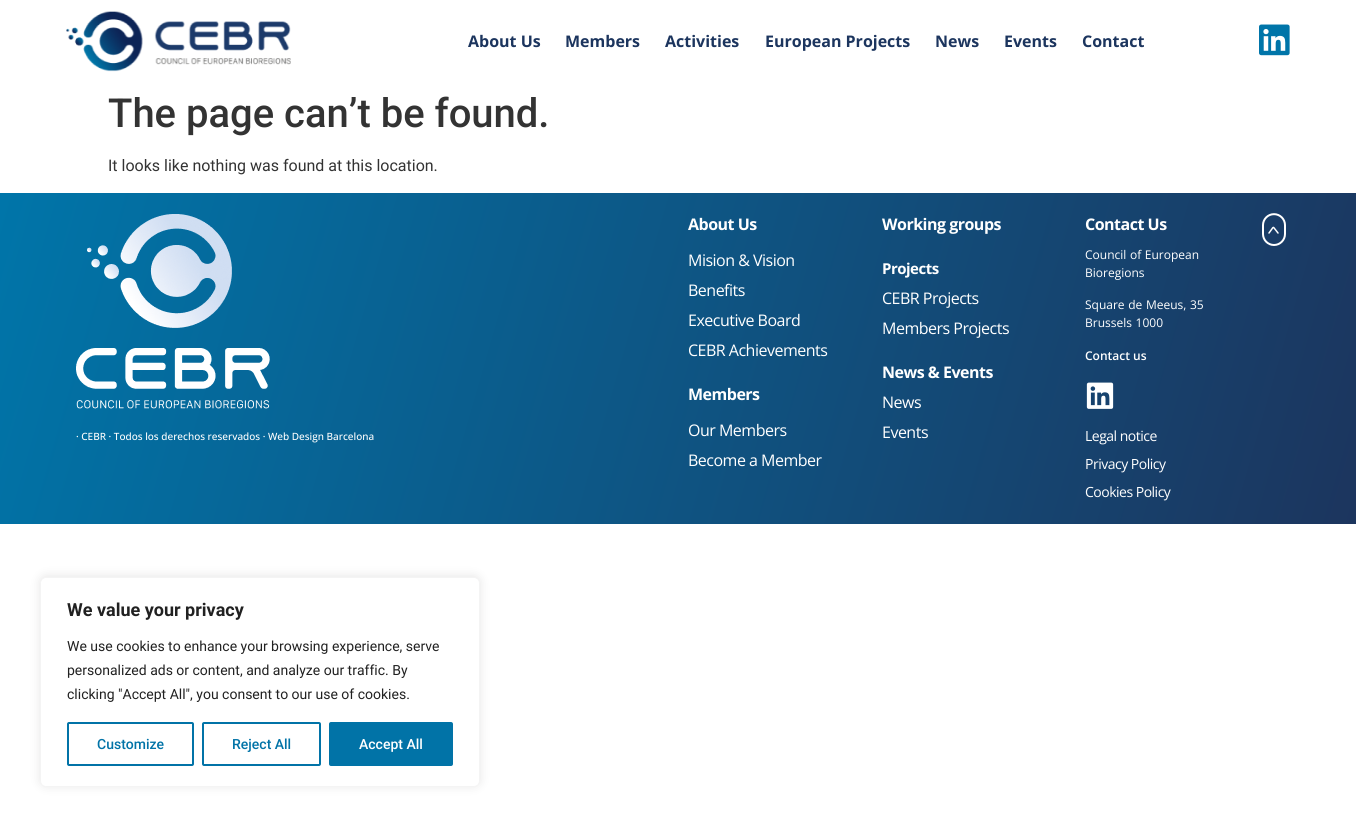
#include <cairo/cairo.h>
#include <math.h>
#include <stddef.h>

static cairo_t *cr;

static void use_color(int r, int g, int b) {
  cairo_set_source_rgb(cr, r / 255.0, g / 255.0, b / 255.0);
}

static void text(double x, double y, const char *s, const char *family, double size, int italic, int bold, int r, int g, int b) {
  cairo_select_font_face(cr, family, italic ? CAIRO_FONT_SLANT_ITALIC : CAIRO_FONT_SLANT_NORMAL,
    bold ? CAIRO_FONT_WEIGHT_BOLD : CAIRO_FONT_WEIGHT_NORMAL);
  cairo_set_font_size(cr, size);
  use_color(r, g, b);
  cairo_move_to(cr, x, y);
  cairo_show_text(cr, s);
}

static void spaced_text(double x, double y, const char *s, double letter, double word) {
  cairo_move_to(cr, x, y);
  while (*s) {
    char ch[5] = {0};
    int n = 0;
    do ch[n++] = *s++; while ((*s & 0xC0) == 0x80);
    cairo_show_text(cr, ch);
    cairo_rel_move_to(cr, letter + word * (*ch == ' '), 0);
  }
}

static void round_rect(double x, double y, double w, double h, double r) {
  cairo_new_sub_path(cr);
  cairo_arc(cr, x + w - r, y + h - r, r, 0, M_PI / 2);
  cairo_arc(cr, x + r, y + h - r, r, M_PI / 2, M_PI);
  cairo_arc(cr, x + r, y + r, r, M_PI, 1.5 * M_PI);
  cairo_arc(cr, x + w - r, y + r, r, 1.5 * M_PI, 2 * M_PI);
  cairo_close_path(cr);
}

static void shadow(double x, double y, double w, double h, double r, double blur, double alpha) {
  cairo_push_group_with_content(cr, CAIRO_CONTENT_ALPHA);
  cairo_set_operator(cr, CAIRO_OPERATOR_SOURCE);
  for (int i = 15; i >= -15 && fmin(w, h) + blur * i / 3 > 0; i -= 2) {
    double e = blur * i / 6;
    cairo_set_source_rgba(cr, 0, 0, 0, alpha * erfc((i - 1) / 8.5) / 2);
    round_rect(x - e, y - e, w + 2 * e, h + 2 * e, fmax(0, fmin(r + e + blur * .6, fmin(w, h) / 2 + e)));
    cairo_fill(cr);
  }
  cairo_pattern_t *soft = cairo_pop_group(cr);
  cairo_mask(cr, soft);
  cairo_pattern_destroy(soft);
}

static void picture(const char *path, double x, double y, double w, double h) {
  cairo_surface_t *image = cairo_image_surface_create_from_png(path);
  cairo_save(cr);
  cairo_set_source_surface(cr, image, x, y);
  cairo_rectangle(cr, x, y, w, h);
  cairo_fill(cr);
  cairo_restore(cr);
  cairo_surface_destroy(image);
}

static void draw(void) {
  cairo_pattern_t *gradient;
  use_color(255, 255, 255);
  cairo_paint(cr);
  picture("img_01.png", 66, 11, 225, 61);
  picture("img_02.png", 1259, 24, 31, 32);
  gradient = cairo_pattern_create_linear(1348, 551, 7.7, 166);
  cairo_pattern_add_color_stop_rgba(gradient, 0, 0.11, 0.208, 0.369, 1);
  cairo_pattern_add_color_stop_rgba(gradient, 1, 0, 0.459, 0.663, 1);
  cairo_set_source(cr, gradient);
  cairo_pattern_destroy(gradient);
  cairo_rectangle(cr, 0, 193, 1356, 331);
  cairo_fill(cr);
  picture("img_03.png", 76, 214, 194, 195);
  picture("img_04.png", 1086, 382, 28, 27);
  picture("img_05.png", 1262, 213, 24, 33);
  use_color(172, 171, 171);
  shadow(40, 576, 440, 210, 6, 5, 0.3);
  use_color(255, 255, 255);
  round_rect(40.5, 577.5, 439, 209, 5.5);
  cairo_fill_preserve(cr);
  use_color(244, 244, 244);
  cairo_set_line_width(cr, 1);
  cairo_stroke(cr);
  round_rect(68, 723, 125, 42, 1);
  use_color(1, 115, 167);
  cairo_set_line_width(cr, 2);
  cairo_stroke(cr);
  round_rect(203, 723, 117, 42, 1);
  cairo_stroke(cr);
  round_rect(330, 723, 122, 42, 1);
  cairo_fill_preserve(cr);
  cairo_stroke(cr);
  text(468, 47, "About Us", "Open Sans", 16, 0, 1, 28, 53, 94);
  text(565, 47, "Members", "Open Sans", 16, 0, 1, 28, 53, 94);
  text(665, 47, "Activities", "Open Sans", 16, 0, 1, 28, 53, 94);
  text(765, 47, "European Projects", "Open Sans", 16, 0, 1, 28, 53, 94);
  text(935, 47, "News", "Open Sans", 16, 0, 1, 28, 53, 94);
  text(1004, 47, "Events", "Open Sans", 16, 0, 1, 28, 53, 94);
  text(1082, 47, "Contact", "Open Sans", 16, 0, 1, 28, 53, 94);
  text(108, 127, "The page can’t be found.", "Roboto Medium", 40, 0, 0, 51, 51, 51);
  text(108, 171, "It looks like nothing was found at this location.", "Roboto", 16, 0, 0, 51, 51, 51);
  text(76, 440, "· CEBR · Todos los derechos reservados · Web Design Barcelona", "Open Sans Medium", 10, 0, 0, 255, 255, 255);
  cairo_select_font_face(cr, "Open Sans", CAIRO_FONT_SLANT_NORMAL, CAIRO_FONT_WEIGHT_BOLD);
  cairo_set_font_size(cr, 16);
  spaced_text(688, 230, "About Us", -0.5, 0);
  cairo_select_font_face(cr, "Open Sans", CAIRO_FONT_SLANT_NORMAL, CAIRO_FONT_WEIGHT_NORMAL);
  spaced_text(688, 266, "Mision & Vision", -0.5, 0);
  spaced_text(688, 296, "Benefits", -0.5, 0);
  spaced_text(688, 326, "Executive Board", -0.5, 0);
  spaced_text(688, 356, "CEBR Achievements", -0.5, 0);
  cairo_select_font_face(cr, "Open Sans", CAIRO_FONT_SLANT_NORMAL, CAIRO_FONT_WEIGHT_BOLD);
  spaced_text(688, 400, "Members", -0.5, 0);
  cairo_select_font_face(cr, "Open Sans", CAIRO_FONT_SLANT_NORMAL, CAIRO_FONT_WEIGHT_NORMAL);
  spaced_text(688, 436, "Our Members", -0.5, 0);
  spaced_text(688, 466, "Become a Member", -0.5, 0);
  cairo_select_font_face(cr, "Open Sans", CAIRO_FONT_SLANT_NORMAL, CAIRO_FONT_WEIGHT_BOLD);
  spaced_text(882, 230, "Working groups", -0.5, 0);
  cairo_set_font_size(cr, 15);
  spaced_text(882, 274, "Projects", -0.5, 0);
  cairo_select_font_face(cr, "Open Sans", CAIRO_FONT_SLANT_NORMAL, CAIRO_FONT_WEIGHT_NORMAL);
  cairo_set_font_size(cr, 16);
  spaced_text(882, 304, "CEBR Projects", -0.5, 0);
  spaced_text(882, 334, "Members Projects", -0.5, 0);
  cairo_select_font_face(cr, "Open Sans", CAIRO_FONT_SLANT_NORMAL, CAIRO_FONT_WEIGHT_BOLD);
  spaced_text(882, 378, "News & Events", -0.5, 0);
  cairo_select_font_face(cr, "Open Sans", CAIRO_FONT_SLANT_NORMAL, CAIRO_FONT_WEIGHT_NORMAL);
  spaced_text(882, 408, "News", -0.5, 0);
  spaced_text(882, 438, "Events", -0.5, 0);
  cairo_select_font_face(cr, "Open Sans", CAIRO_FONT_SLANT_NORMAL, CAIRO_FONT_WEIGHT_BOLD);
  spaced_text(1085, 230, "Contact Us", -0.5, 0);
  cairo_select_font_face(cr, "Open Sans", CAIRO_FONT_SLANT_NORMAL, CAIRO_FONT_WEIGHT_NORMAL);
  cairo_set_font_size(cr, 12);
  spaced_text(1085, 259, "Council of European", 0, 0.5);
  text(1085, 277, "Bioregions", "Open Sans", 12, 0, 0, 255, 255, 255);
  spaced_text(1085, 309, "Square de Meeus, 35", 0, 0.5);
  spaced_text(1085, 327, "Brussels 1000", 0, 0.5);
  text(1085, 360, "Contact us", "Open Sans SemiBold", 12, 0, 0, 255, 255, 255);
  cairo_select_font_face(cr, "Open Sans", CAIRO_FONT_SLANT_NORMAL, CAIRO_FONT_WEIGHT_NORMAL);
  cairo_set_font_size(cr, 14);
  spaced_text(1085, 441, "Legal notice", -0.5, 0);
  spaced_text(1085, 469, "Privacy Policy", -0.5, 0);
  spaced_text(1085, 497, "Cookies Policy", -0.5, 0);
  text(67, 616, "We value your privacy", "Roboto", 18, 0, 1, 33, 33, 33);
  text(67, 651, "We use cookies to enhance your browsing experience, serve", "Roboto", 14, 0, 0, 33, 33, 33);
  text(67, 675, "personalized ads or content, and analyze our traffic. By", "Roboto", 14, 0, 0, 33, 33, 33);
  text(67, 699, "clicking \"Accept All\", you consent to our use of cookies.", "Roboto", 14, 0, 0, 33, 33, 33);
  text(97, 749, "Customize", "Roboto Medium", 14, 0, 0, 1, 115, 167);
  text(232, 749, "Reject All", "Roboto Medium", 14, 0, 0, 1, 115, 167);
  text(359, 749, "Accept All", "Roboto Medium", 14, 0, 0, 255, 255, 255);
}

int main(void) {
  cairo_surface_t *surface = cairo_image_surface_create(CAIRO_FORMAT_RGB24, 1356, 827);
  cr = cairo_create(surface);
  cairo_font_options_t *options = cairo_font_options_create();
  cairo_font_options_set_hint_metrics(options, CAIRO_HINT_METRICS_OFF);
  cairo_font_options_set_hint_style(options, CAIRO_HINT_STYLE_NONE);
  cairo_set_font_options(cr, options);
  cairo_set_miter_limit(cr, 4);
  draw();
  cairo_surface_write_to_png(surface, "out.png");
  cairo_font_options_destroy(options);
  cairo_destroy(cr);
  cairo_surface_destroy(surface);
  return 0;
}
